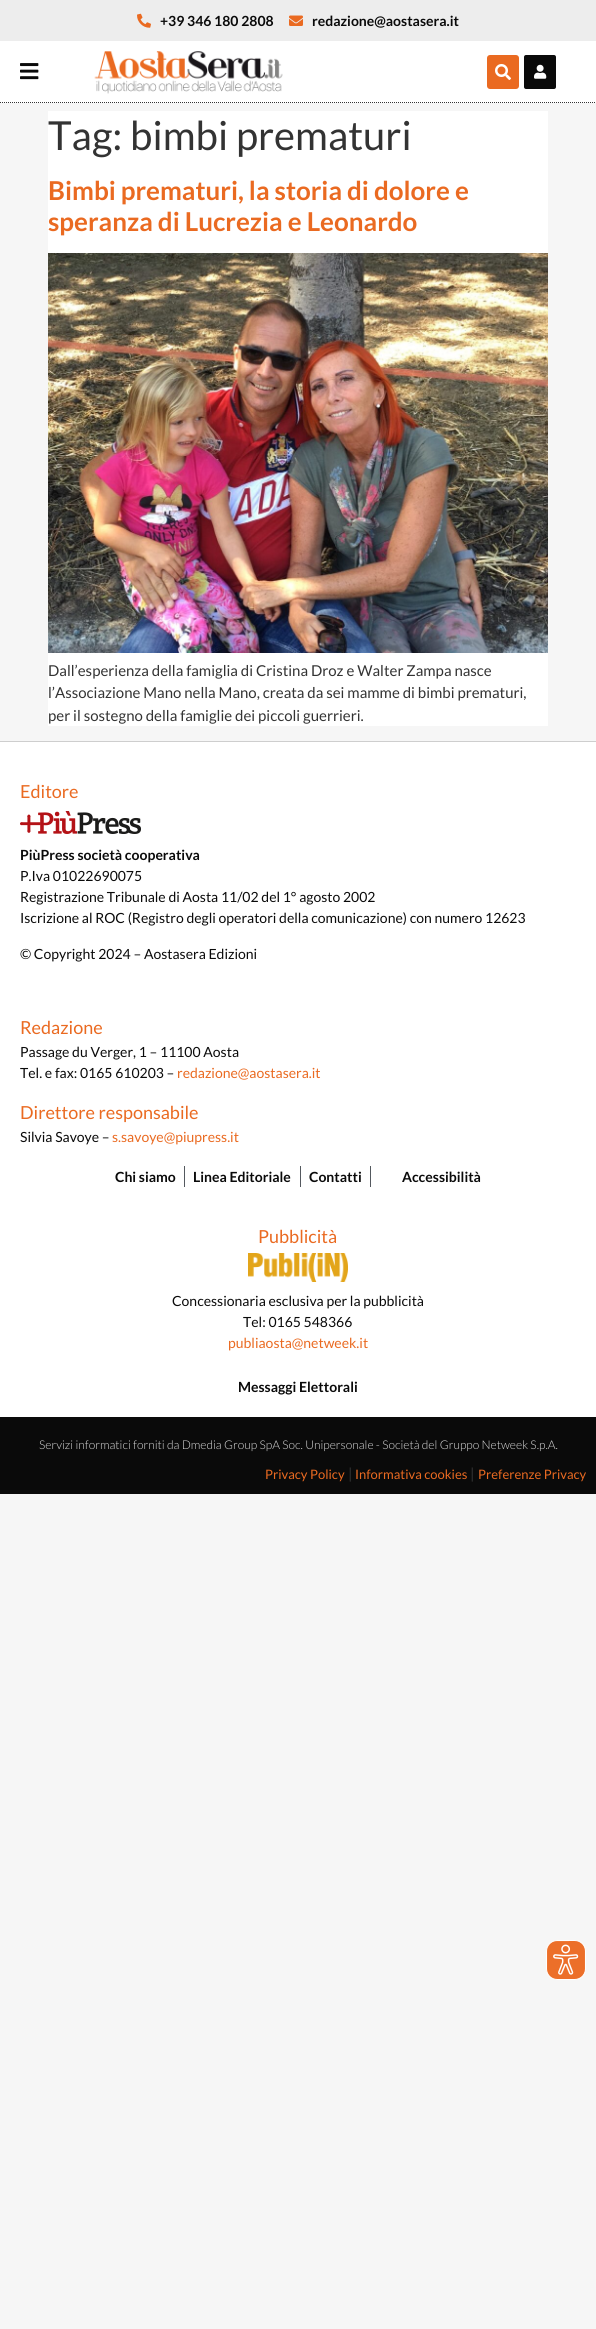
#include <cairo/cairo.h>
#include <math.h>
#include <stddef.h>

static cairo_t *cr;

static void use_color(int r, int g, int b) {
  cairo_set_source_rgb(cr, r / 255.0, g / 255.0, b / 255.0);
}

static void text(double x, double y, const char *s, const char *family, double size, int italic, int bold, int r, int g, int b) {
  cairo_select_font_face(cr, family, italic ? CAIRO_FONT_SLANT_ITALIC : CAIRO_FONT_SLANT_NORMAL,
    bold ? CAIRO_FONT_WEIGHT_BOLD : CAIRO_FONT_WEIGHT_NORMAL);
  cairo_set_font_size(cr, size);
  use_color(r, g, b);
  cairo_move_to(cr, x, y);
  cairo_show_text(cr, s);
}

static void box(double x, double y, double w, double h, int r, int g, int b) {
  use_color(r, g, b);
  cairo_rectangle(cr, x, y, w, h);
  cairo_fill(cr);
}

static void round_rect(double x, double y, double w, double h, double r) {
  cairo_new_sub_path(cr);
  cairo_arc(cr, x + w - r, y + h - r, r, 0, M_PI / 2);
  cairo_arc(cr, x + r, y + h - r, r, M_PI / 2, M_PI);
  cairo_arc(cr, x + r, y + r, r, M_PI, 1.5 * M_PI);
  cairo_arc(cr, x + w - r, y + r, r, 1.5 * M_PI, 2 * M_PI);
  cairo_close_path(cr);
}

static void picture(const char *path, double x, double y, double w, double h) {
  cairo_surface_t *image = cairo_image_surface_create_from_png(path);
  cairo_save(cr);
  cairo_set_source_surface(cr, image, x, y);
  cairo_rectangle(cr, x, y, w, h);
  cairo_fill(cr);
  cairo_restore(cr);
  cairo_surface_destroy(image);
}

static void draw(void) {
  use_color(246, 246, 246);
  cairo_paint(cr);
  box(0, 41, 596, 62, 255, 255, 255);
  box(0, 0, 596, 41, 237, 237, 237);
  picture("img_01.png", 137, 13, 14, 15);
  picture("img_02.png", 289, 15, 14, 11);
  cairo_new_path(cr);
  cairo_move_to(cr, 0, 102.5);
  cairo_line_to(cr, 596, 102.5);
  use_color(51, 51, 51);
  cairo_set_line_width(cr, 1);
  cairo_set_dash(cr, (double[]){1, 1}, 2, 0);
  cairo_stroke(cr);
  picture("img_03.png", 20, 63, 19, 17);
  picture("img_04.png", 94, 51, 189, 43);
  use_color(234, 106, 33);
  round_rect(487, 55, 32, 34, 3);
  cairo_fill(cr);
  picture("img_05.png", 495, 64, 16, 16);
  use_color(10, 10, 10);
  round_rect(524, 55, 32, 34, 2);
  cairo_fill(cr);
  picture("img_06.png", 534, 64, 13, 15);
  box(48, 111, 500, 615, 255, 255, 255);
  picture("img_07.png", 48, 253, 500, 400);
  box(0, 742, 596, 675, 255, 255, 255);
  box(0, 741, 596, 1, 206, 206, 206);
  picture("img_08.png", 20, 811, 121, 23);
  box(184, 1166, 1, 21, 84, 89, 95);
  box(300, 1166, 1, 21, 84, 89, 95);
  box(370, 1166, 1, 21, 84, 89, 95);
  picture("img_09.png", 248, 1253, 100, 29);
  box(0, 1417, 596, 77, 10, 10, 10);
  picture("img_10.png", 546, 1940, 40, 40);
  text(160, 26, "+39 346 180 2808", "Lato", 14, 0, 1, 10, 10, 10);
  text(312, 26, "redazione@aostasera.it", "Lato", 14, 0, 1, 10, 10, 10);
  text(48, 150, "Tag: bimbi prematuri", "Lato", 40, 0, 0, 51, 51, 51);
  text(48, 200, "Bimbi prematuri, la storia di dolore e", "Lato", 26, 0, 1, 234, 106, 33);
  text(48, 231, "speranza di Lucrezia e Leonardo", "Lato", 26, 0, 1, 234, 106, 33);
  text(48, 676, "Dall’esperienza della famiglia di Cristina Droz e Walter Zampa nasce", "Lato", 15, 0, 0, 51, 51, 51);
  text(48, 698, "l’Associazione Mano nella Mano, creata da sei mamme di bimbi prematuri,", "Lato", 15, 0, 0, 51, 51, 51);
  text(48, 721, "per il sostegno della famiglie dei piccoli guerrieri.", "Lato", 15, 0, 0, 51, 51, 51);
  text(20, 798, "Editore", "Lato", 18, 0, 0, 234, 106, 33);
  text(20, 860, "PiùPress società cooperativa", "Lato", 14, 0, 1, 10, 10, 10);
  text(20, 881, "P.Iva 01022690075", "Lato", 14, 0, 0, 10, 10, 10);
  text(20, 902, "Registrazione Tribunale di Aosta 11/02 del 1° agosto 2002", "Lato", 14, 0, 0, 10, 10, 10);
  text(20, 923, "Iscrizione al ROC (Registro degli operatori della comunicazione) con numero 12623", "Lato", 14, 0, 0, 10, 10, 10);
  text(20, 959, "© Copyright 2024 – Aostasera Edizioni", "Lato", 14, 0, 0, 10, 10, 10);
  text(20, 1034, "Redazione", "Lato", 18, 0, 0, 234, 106, 33);
  text(20, 1057, "Passage du Verger, 1 – 11100 Aosta", "Lato", 14, 0, 0, 10, 10, 10);
  text(20, 1078, "Tel. e fax: 0165 610203 –", "Lato", 14, 0, 0, 10, 10, 10);
  text(177, 1078, "redazione@aostasera.it", "Lato", 14, 0, 0, 234, 106, 33);
  text(20, 1119, "Direttore responsabile", "Lato", 18, 0, 0, 234, 106, 33);
  text(20, 1142, "Silvia Savoye –", "Lato", 14, 0, 0, 10, 10, 10);
  text(112, 1142, "s.savoye@piupress.it", "Lato", 14, 0, 0, 234, 106, 33);
  text(115, 1182, "Chi siamo", "Lato", 14, 0, 1, 10, 10, 10);
  text(193, 1182, "Linea Editoriale", "Lato", 14, 0, 1, 10, 10, 10);
  text(309, 1182, "Contatti", "Lato", 14, 0, 1, 10, 10, 10);
  text(402, 1182, "Accessibilità", "Lato", 14, 0, 1, 10, 10, 10);
  text(258, 1243, "Pubblicità", "Lato", 18, 0, 0, 234, 106, 33);
  text(172, 1306, "Concessionaria esclusiva per la pubblicità", "Lato", 14, 0, 0, 10, 10, 10);
  text(243, 1327, "Tel: 0165 548366", "Lato", 14, 0, 0, 10, 10, 10);
  text(228, 1348, "publiaosta@netweek.it", "Lato", 14, 0, 0, 234, 106, 33);
  text(238, 1392, "Messaggi Elettorali", "Lato", 14, 0, 1, 10, 10, 10);
  text(39, 1449, "Servizi informatici forniti da Dmedia Group SpA Soc. Unipersonale - Società del Gruppo Netweek S.p.A.", "Lato Light", 12, 0, 0, 221, 221, 221);
  text(265, 1479, "Privacy Policy", "Lato", 13, 0, 0, 234, 106, 33);
  text(348, 1479, "|", "Lato", 15, 0, 0, 51, 51, 51);
  text(355, 1479, "Informativa cookies", "Lato", 13, 0, 0, 234, 106, 33);
  text(470, 1479, "|", "Lato", 15, 0, 0, 51, 51, 51);
  text(478, 1479, "Preferenze Privacy", "Lato", 13, 0, 0, 234, 106, 33);
}

int main(void) {
  cairo_surface_t *surface = cairo_image_surface_create(CAIRO_FORMAT_RGB24, 596, 2329);
  cr = cairo_create(surface);
  cairo_font_options_t *options = cairo_font_options_create();
  cairo_font_options_set_hint_metrics(options, CAIRO_HINT_METRICS_OFF);
  cairo_font_options_set_hint_style(options, CAIRO_HINT_STYLE_NONE);
  cairo_set_font_options(cr, options);
  cairo_set_miter_limit(cr, 4);
  draw();
  cairo_surface_write_to_png(surface, "out.png");
  cairo_font_options_destroy(options);
  cairo_destroy(cr);
  cairo_surface_destroy(surface);
  return 0;
}
